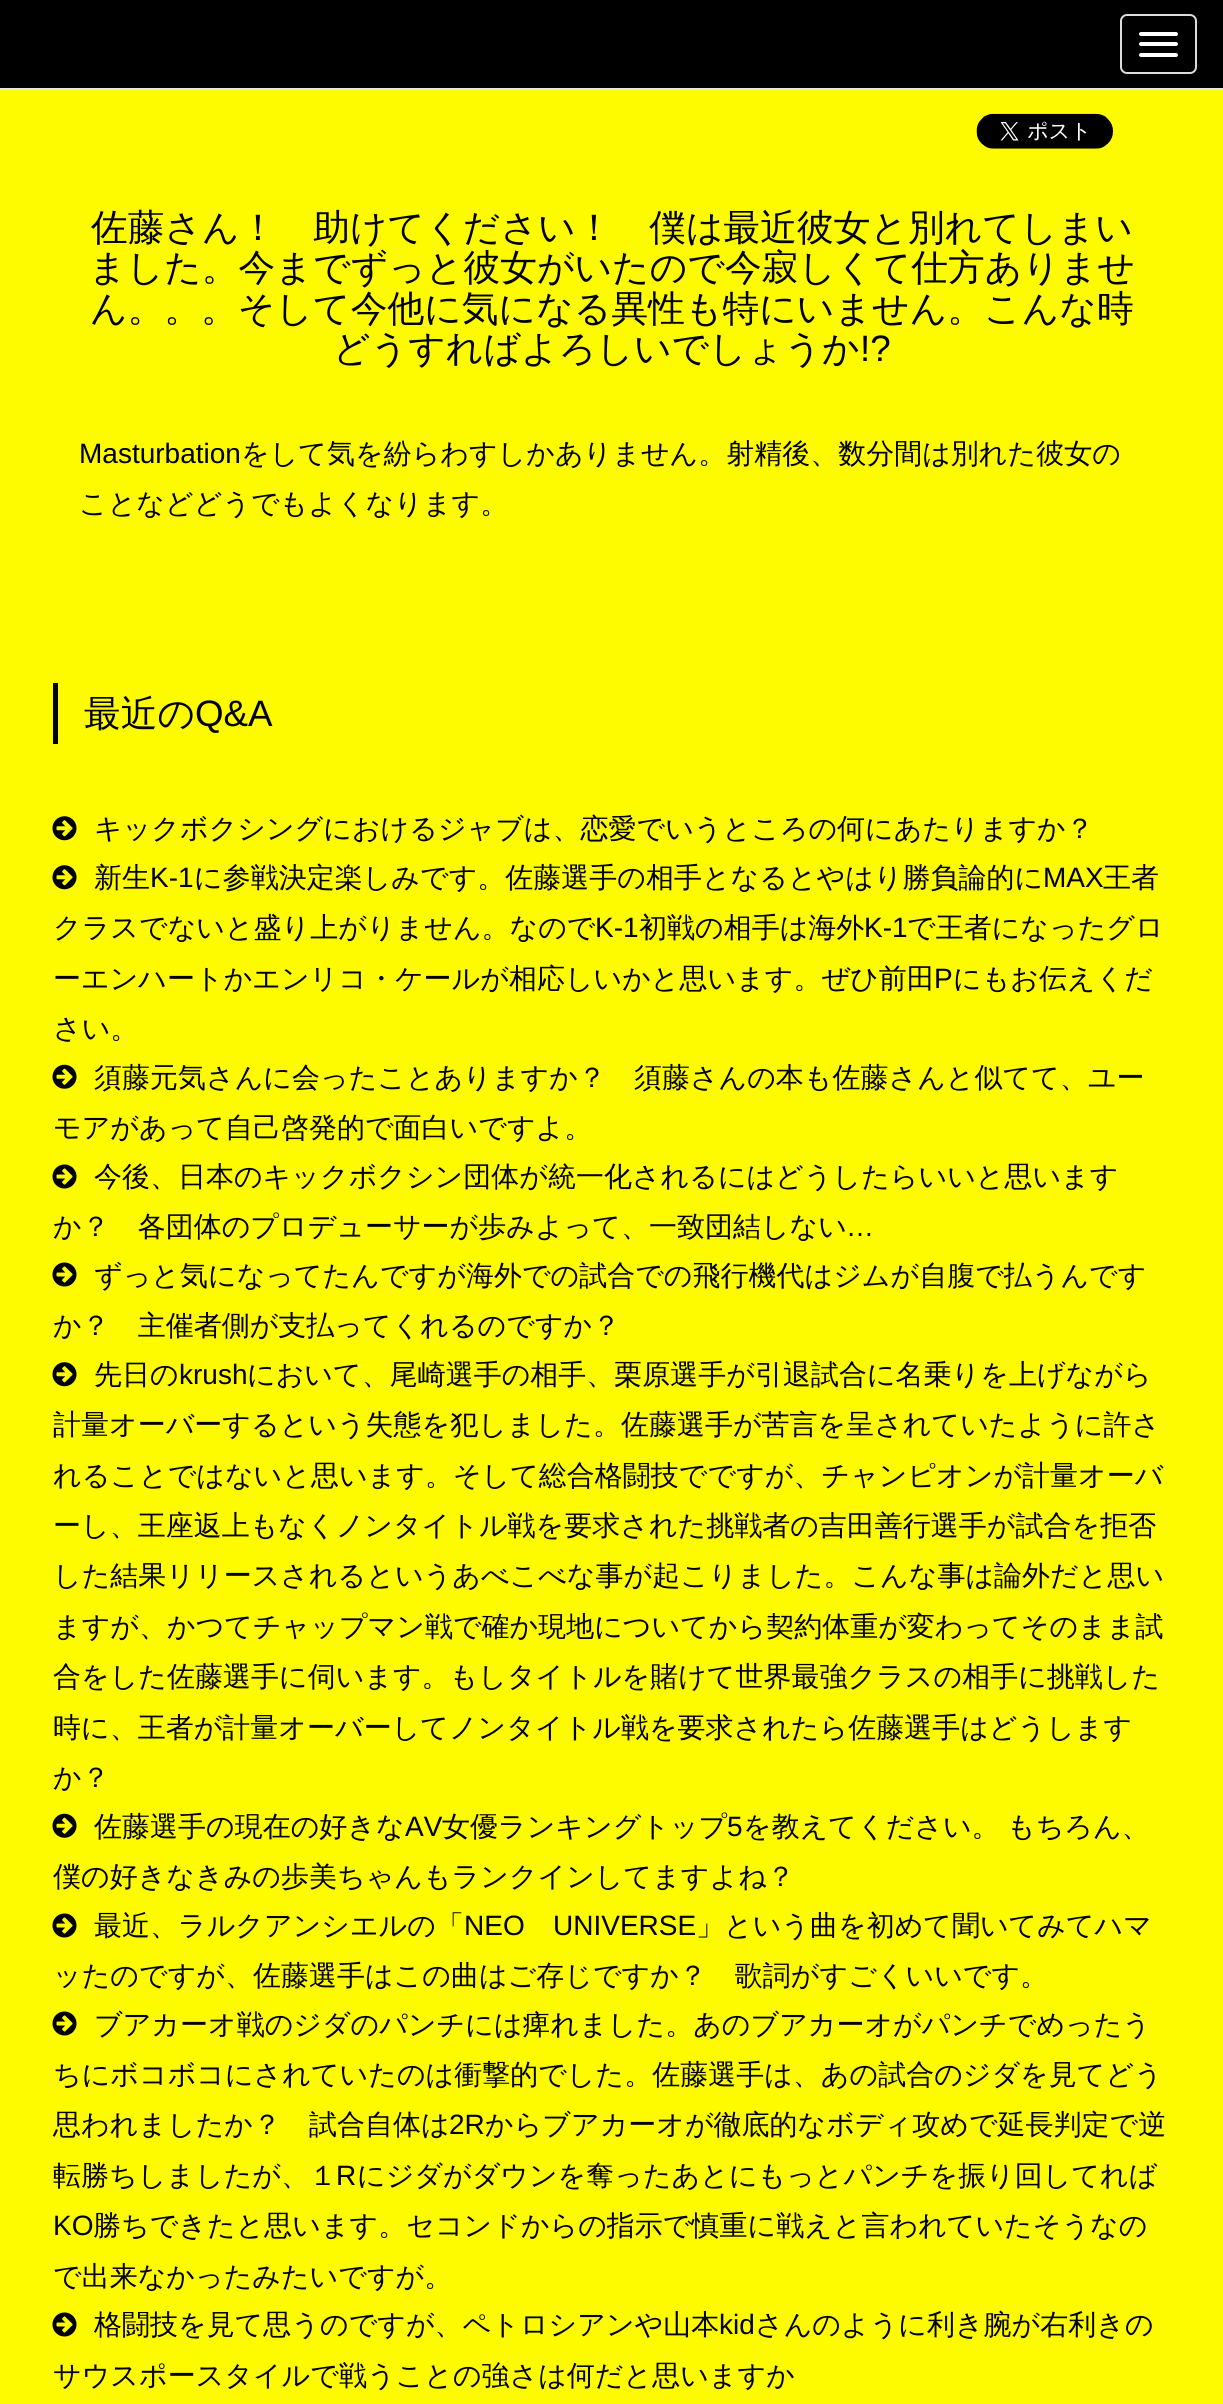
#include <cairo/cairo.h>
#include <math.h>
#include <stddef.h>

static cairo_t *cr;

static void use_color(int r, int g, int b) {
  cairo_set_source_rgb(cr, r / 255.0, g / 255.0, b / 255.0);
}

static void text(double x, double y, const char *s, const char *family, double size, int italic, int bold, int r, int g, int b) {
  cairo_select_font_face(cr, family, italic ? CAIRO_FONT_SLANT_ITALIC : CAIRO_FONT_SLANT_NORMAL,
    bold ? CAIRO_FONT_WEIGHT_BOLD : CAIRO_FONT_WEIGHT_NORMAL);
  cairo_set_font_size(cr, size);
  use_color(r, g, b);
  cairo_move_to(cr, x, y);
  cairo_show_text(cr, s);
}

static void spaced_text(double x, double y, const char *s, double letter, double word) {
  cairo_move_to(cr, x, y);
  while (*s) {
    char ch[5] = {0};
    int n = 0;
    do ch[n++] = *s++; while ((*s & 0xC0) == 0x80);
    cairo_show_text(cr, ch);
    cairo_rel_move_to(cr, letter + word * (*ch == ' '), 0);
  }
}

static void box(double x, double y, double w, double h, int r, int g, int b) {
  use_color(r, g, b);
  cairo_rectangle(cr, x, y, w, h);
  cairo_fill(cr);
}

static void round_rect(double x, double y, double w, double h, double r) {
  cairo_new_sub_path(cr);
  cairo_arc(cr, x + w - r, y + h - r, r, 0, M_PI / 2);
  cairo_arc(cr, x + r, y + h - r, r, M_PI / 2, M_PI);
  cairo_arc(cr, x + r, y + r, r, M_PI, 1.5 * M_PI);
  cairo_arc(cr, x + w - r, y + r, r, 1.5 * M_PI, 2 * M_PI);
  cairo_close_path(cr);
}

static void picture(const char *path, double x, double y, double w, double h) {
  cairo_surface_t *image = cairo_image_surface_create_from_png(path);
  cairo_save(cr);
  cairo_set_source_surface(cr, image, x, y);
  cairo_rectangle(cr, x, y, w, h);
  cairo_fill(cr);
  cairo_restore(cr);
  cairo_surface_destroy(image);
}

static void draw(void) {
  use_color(254, 251, 0);
  cairo_paint(cr);
  picture("img_01.png", 976, 113, 137, 36);
  box(0, 0, 1223, 88, 0, 0, 0);
  box(0, 88, 1223, 2, 231, 231, 231);
  round_rect(1121, 15, 75, 58, 6);
  use_color(221, 221, 221);
  cairo_stroke(cr);
  use_color(255, 255, 255);
  round_rect(1139, 32, 39, 4, 2);
  cairo_fill(cr);
  round_rect(1139, 42, 39, 4, 2);
  cairo_fill(cr);
  round_rect(1139, 53, 39, 4, 2);
  cairo_fill(cr);
  box(53, 683, 5, 61, 0, 0, 0);
  picture("img_02.png", 52, 816, 25, 25);
  picture("img_02.png", 52, 865, 25, 25);
  picture("img_03.png", 52, 1064, 25, 25);
  picture("img_04.png", 52, 1164, 25, 25);
  picture("img_04.png", 52, 1262, 25, 25);
  picture("img_02.png", 52, 1362, 25, 25);
  picture("img_03.png", 52, 1813, 25, 25);
  picture("img_04.png", 52, 1913, 25, 25);
  picture("img_04.png", 52, 2011, 25, 25);
  picture("img_04.png", 52, 2312, 25, 25);
  text(91, 240, "佐藤さん！　助けてください！　僕は最近彼女と別れてしまい", "WenQuanYi Zen Hei Medium", 36.75, 0, 0, 0, 0, 0);
  text(89, 280, "ました。今までずっと彼女がいたので今寂しくて仕方ありませ", "WenQuanYi Zen Hei Medium", 36.75, 0, 0, 0, 0, 0);
  text(90, 321, "ん。。。そして今他に気になる異性も特にいません。こんな時", "WenQuanYi Zen Hei Medium", 36.75, 0, 0, 0, 0, 0);
  text(333, 361, "どうすればよろしいでしょうか", "WenQuanYi Zen Hei Medium", 36.75, 0, 0, 0, 0, 0);
  text(860, 361, "!?", "Liberation Sans", 36.75, 0, 0, 0, 0, 0);
  text(79, 463, "Masturbation", "Liberation Sans", 28, 0, 0, 0, 0, 0);
  text(241, 463, "をして気を紛らわすしかありません。射精後、数分間は別れた彼女の", "WenQuanYi Zen Hei Medium", 28, 0, 0, 0, 0, 0);
  text(79, 513, "ことなどどうでもよくなります。", "WenQuanYi Zen Hei Medium", 28, 0, 0, 0, 0, 0);
  text(84, 726, "最近の", "WenQuanYi Zen Hei Medium", 36.75, 0, 0, 0, 0, 0);
  text(195, 726, "Q&A", "Liberation Sans", 36.75, 0, 0, 0, 0, 0);
  text(94, 838, "キックボクシングにおけるジャブは、恋愛でいうところの何にあたりますか？", "WenQuanYi Zen Hei Medium", 28, 0, 0, 0, 0, 0);
  text(94, 887, "新生", "WenQuanYi Zen Hei Medium", 28, 0, 0, 0, 0, 0);
  text(150, 887, "K-1", "Liberation Sans", 28, 0, 0, 0, 0, 0);
  text(194, 887, "に参戦決定楽しみです。佐藤選手の相手となるとやはり勝負論的に", "WenQuanYi Zen Hei Medium", 28, 0, 0, 0, 0, 0);
  text(1043, 887, "MAX", "Liberation Sans", 28, 0, 0, 0, 0, 0);
  text(1103, 887, "王者", "WenQuanYi Zen Hei Medium", 28, 0, 0, 0, 0, 0);
  text(53, 937, "クラスでないと盛り上がりません。なので", "WenQuanYi Zen Hei Medium", 28, 0, 0, 0, 0, 0);
  text(595, 937, "K-1", "Liberation Sans", 28, 0, 0, 0, 0, 0);
  text(639, 937, "初戦の相手は海外", "WenQuanYi Zen Hei Medium", 28, 0, 0, 0, 0, 0);
  text(864, 937, "K-1", "Liberation Sans", 28, 0, 0, 0, 0, 0);
  text(907, 937, "で王者になったグロ", "WenQuanYi Zen Hei Medium", 28, 0, 0, 0, 0, 0);
  text(53, 988, "ーエンハートかエンリコ・ケールが相応しいかと思います。ぜひ前田", "WenQuanYi Zen Hei Medium", 28, 0, 0, 0, 0, 0);
  text(934, 988, "P", "Liberation Sans", 28, 0, 0, 0, 0, 0);
  text(953, 988, "にもお伝えくだ", "WenQuanYi Zen Hei Medium", 28, 0, 0, 0, 0, 0);
  text(53, 1038, "さい。", "WenQuanYi Zen Hei Medium", 28, 0, 0, 0, 0, 0);
  text(94, 1087, "須藤元気さんに会ったことありますか？　須藤さんの本も佐藤さんと似てて、ユー", "WenQuanYi Zen Hei Medium", 28, 0, 0, 0, 0, 0);
  text(53, 1137, "モアがあって自己啓発的で面白いですよ。", "WenQuanYi Zen Hei Medium", 28, 0, 0, 0, 0, 0);
  text(94, 1186, "今後、日本のキックボクシン団体が統一化されるにはどうしたらいいと思います", "WenQuanYi Zen Hei Medium", 28, 0, 0, 0, 0, 0);
  text(53, 1236, "か？　各団体のプロデューサーが歩みよって、一致団結しない", "WenQuanYi Zen Hei Medium", 28, 0, 0, 0, 0, 0);
  text(846, 1236, "…", "Liberation Sans", 28, 0, 0, 0, 0, 0);
  text(94, 1285, "ずっと気になってたんですが海外での試合での飛行機代はジムが自腹で払うんです", "WenQuanYi Zen Hei Medium", 28, 0, 0, 0, 0, 0);
  text(53, 1335, "か？　主催者側が支払ってくれるのですか？", "WenQuanYi Zen Hei Medium", 28, 0, 0, 0, 0, 0);
  text(94, 1384, "先日の", "WenQuanYi Zen Hei Medium", 28, 0, 0, 0, 0, 0);
  text(179, 1384, "krush", "Liberation Sans", 28, 0, 0, 0, 0, 0);
  text(247, 1384, "において、尾崎選手の相手、栗原選手が引退試合に名乗りを上げながら", "WenQuanYi Zen Hei Medium", 28, 0, 0, 0, 0, 0);
  text(53, 1434, "計量オーバーするという失態を犯しました。佐藤選手が苦言を呈されていたように許さ", "WenQuanYi Zen Hei Medium", 28, 0, 0, 0, 0, 0);
  text(53, 1485, "れることではないと思います。そして総合格闘技でですが、チャンピオンが計量オーバ", "WenQuanYi Zen Hei Medium", 28, 0, 0, 0, 0, 0);
  text(53, 1535, "ーし、王座返上もなくノンタイトル戦を要求された挑戦者の吉田善行選手が試合を拒否", "WenQuanYi Zen Hei Medium", 28, 0, 0, 0, 0, 0);
  text(53, 1585, "した結果リリースされるというあべこべな事が起こりました。こんな事は論外だと思い", "WenQuanYi Zen Hei Medium", 28, 0, 0, 0, 0, 0);
  text(53, 1636, "ますが、かつてチャップマン戦で確か現地についてから契約体重が変わってそのまま試", "WenQuanYi Zen Hei Medium", 28, 0, 0, 0, 0, 0);
  text(53, 1686, "合をした佐藤選手に伺います。もしタイトルを賭けて世界最強クラスの相手に挑戦した", "WenQuanYi Zen Hei Medium", 28, 0, 0, 0, 0, 0);
  text(53, 1737, "時に、王者が計量オーバーしてノンタイトル戦を要求されたら佐藤選手はどうします", "WenQuanYi Zen Hei Medium", 28, 0, 0, 0, 0, 0);
  text(53, 1787, "か？", "WenQuanYi Zen Hei Medium", 28, 0, 0, 0, 0, 0);
  text(94, 1836, "佐藤選手の現在の好きな", "WenQuanYi Zen Hei Medium", 28, 0, 0, 0, 0, 0);
  text(405, 1836, "AV", "Liberation Sans", 28, 0, 0, 0, 0, 0);
  text(442, 1836, "女優ランキングトップ", "WenQuanYi Zen Hei Medium", 28, 0, 0, 0, 0, 0);
  text(727, 1836, "5", "Liberation Sans", 28, 0, 0, 0, 0, 0);
  cairo_select_font_face(cr, "WenQuanYi Zen Hei Medium", CAIRO_FONT_SLANT_NORMAL, CAIRO_FONT_WEIGHT_NORMAL);
  spaced_text(743, 1836, "を教えてください。 もちろん、", 0, -1);
  text(53, 1886, "僕の好きなきみの歩美ちゃんもランクインしてますよね？", "WenQuanYi Zen Hei Medium", 28, 0, 0, 0, 0, 0);
  text(94, 1935, "最近、ラルクアンシエルの「", "WenQuanYi Zen Hei Medium", 28, 0, 0, 0, 0, 0);
  text(464, 1935, "NEO", "Liberation Sans", 28, 0, 0, 0, 0, 0);
  text(553, 1935, "UNIVERSE", "Liberation Sans", 28, 0, 0, 0, 0, 0);
  text(696, 1935, "」という曲を初めて聞いてみてハマ", "WenQuanYi Zen Hei Medium", 28, 0, 0, 0, 0, 0);
  text(53, 1985, "ッたのですが、佐藤選手はこの曲はご存じですか？　歌詞がすごくいいです。", "WenQuanYi Zen Hei Medium", 28, 0, 0, 0, 0, 0);
  text(94, 2034, "ブアカーオ戦のジダのパンチには痺れました。あのブアカーオがパンチでめったう", "WenQuanYi Zen Hei Medium", 28, 0, 0, 0, 0, 0);
  text(53, 2084, "ちにボコボコにされていたのは衝撃的でした。佐藤選手は、あの試合のジダを見てどう", "WenQuanYi Zen Hei Medium", 28, 0, 0, 0, 0, 0);
  text(53, 2134, "思われましたか？　試合自体は", "WenQuanYi Zen Hei Medium", 28, 0, 0, 0, 0, 0);
  text(449, 2134, "2R", "Liberation Sans", 28, 0, 0, 0, 0, 0);
  text(485, 2134, "からブアカーオが徹底的なボディ攻めで延長判定で逆", "WenQuanYi Zen Hei Medium", 28, 0, 0, 0, 0, 0);
  text(53, 2185, "転勝ちしましたが、１", "WenQuanYi Zen Hei Medium", 28, 0, 0, 0, 0, 0);
  text(336, 2185, "R", "Liberation Sans", 28, 0, 0, 0, 0, 0);
  text(357, 2185, "にジダがダウンを奪ったあとにもっとパンチを振り回してれば", "WenQuanYi Zen Hei Medium", 28, 0, 0, 0, 0, 0);
  text(53, 2235, "KO", "Liberation Sans", 28, 0, 0, 0, 0, 0);
  text(93, 2235, "勝ちできたと思います。セコンドからの指示で慎重に戦えと言われていたそうなの", "WenQuanYi Zen Hei Medium", 28, 0, 0, 0, 0, 0);
  text(53, 2286, "で出来なかったみたいですが。", "WenQuanYi Zen Hei Medium", 28, 0, 0, 0, 0, 0);
  text(94, 2334, "格闘技を見て思うのですが、ペトロシアンや山本", "WenQuanYi Zen Hei Medium", 28, 0, 0, 0, 0, 0);
  text(719, 2334, "kid", "Liberation Sans", 28, 0, 0, 0, 0, 0);
  text(755, 2334, "さんのように利き腕が右利きの", "WenQuanYi Zen Hei Medium", 28, 0, 0, 0, 0, 0);
  text(53, 2385, "サウスポースタイルで戦うことの強さは何だと思いますか", "WenQuanYi Zen Hei Medium", 28, 0, 0, 0, 0, 0);
}

int main(void) {
  cairo_surface_t *surface = cairo_image_surface_create(CAIRO_FORMAT_RGB24, 1223, 2404);
  cr = cairo_create(surface);
  cairo_font_options_t *options = cairo_font_options_create();
  cairo_font_options_set_hint_metrics(options, CAIRO_HINT_METRICS_OFF);
  cairo_font_options_set_hint_style(options, CAIRO_HINT_STYLE_NONE);
  cairo_set_font_options(cr, options);
  cairo_set_miter_limit(cr, 4);
  draw();
  cairo_surface_write_to_png(surface, "out.png");
  cairo_font_options_destroy(options);
  cairo_destroy(cr);
  cairo_surface_destroy(surface);
  return 0;
}
